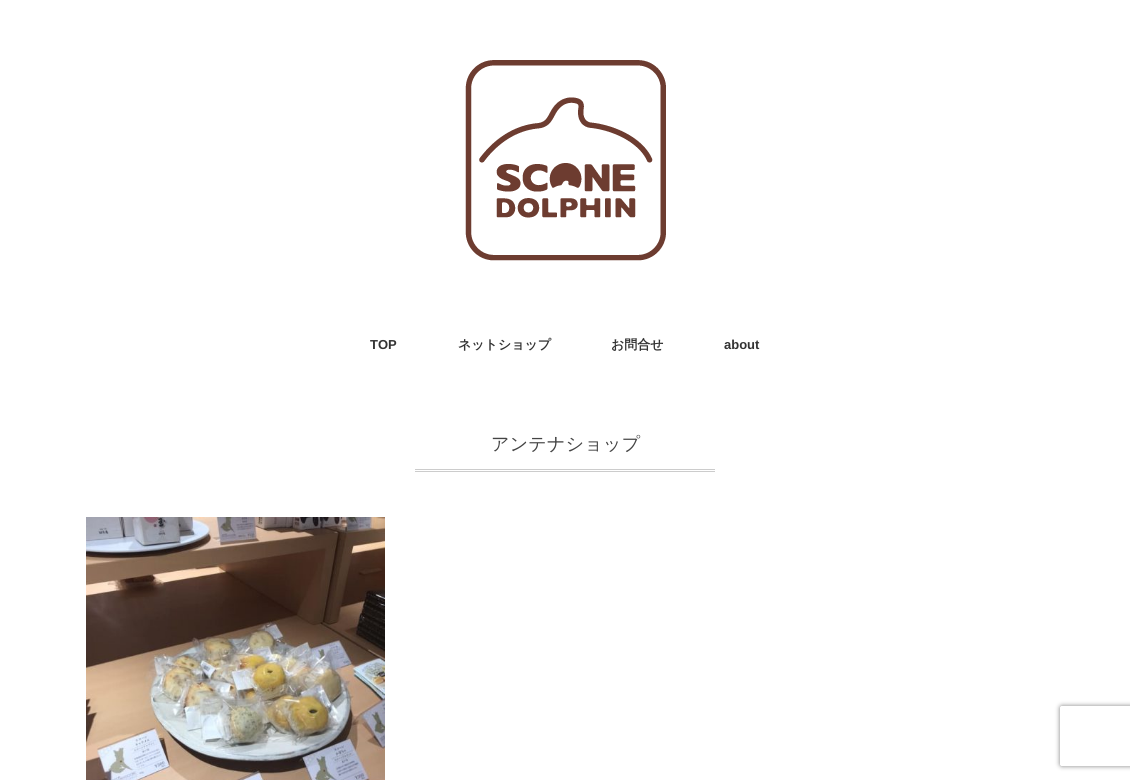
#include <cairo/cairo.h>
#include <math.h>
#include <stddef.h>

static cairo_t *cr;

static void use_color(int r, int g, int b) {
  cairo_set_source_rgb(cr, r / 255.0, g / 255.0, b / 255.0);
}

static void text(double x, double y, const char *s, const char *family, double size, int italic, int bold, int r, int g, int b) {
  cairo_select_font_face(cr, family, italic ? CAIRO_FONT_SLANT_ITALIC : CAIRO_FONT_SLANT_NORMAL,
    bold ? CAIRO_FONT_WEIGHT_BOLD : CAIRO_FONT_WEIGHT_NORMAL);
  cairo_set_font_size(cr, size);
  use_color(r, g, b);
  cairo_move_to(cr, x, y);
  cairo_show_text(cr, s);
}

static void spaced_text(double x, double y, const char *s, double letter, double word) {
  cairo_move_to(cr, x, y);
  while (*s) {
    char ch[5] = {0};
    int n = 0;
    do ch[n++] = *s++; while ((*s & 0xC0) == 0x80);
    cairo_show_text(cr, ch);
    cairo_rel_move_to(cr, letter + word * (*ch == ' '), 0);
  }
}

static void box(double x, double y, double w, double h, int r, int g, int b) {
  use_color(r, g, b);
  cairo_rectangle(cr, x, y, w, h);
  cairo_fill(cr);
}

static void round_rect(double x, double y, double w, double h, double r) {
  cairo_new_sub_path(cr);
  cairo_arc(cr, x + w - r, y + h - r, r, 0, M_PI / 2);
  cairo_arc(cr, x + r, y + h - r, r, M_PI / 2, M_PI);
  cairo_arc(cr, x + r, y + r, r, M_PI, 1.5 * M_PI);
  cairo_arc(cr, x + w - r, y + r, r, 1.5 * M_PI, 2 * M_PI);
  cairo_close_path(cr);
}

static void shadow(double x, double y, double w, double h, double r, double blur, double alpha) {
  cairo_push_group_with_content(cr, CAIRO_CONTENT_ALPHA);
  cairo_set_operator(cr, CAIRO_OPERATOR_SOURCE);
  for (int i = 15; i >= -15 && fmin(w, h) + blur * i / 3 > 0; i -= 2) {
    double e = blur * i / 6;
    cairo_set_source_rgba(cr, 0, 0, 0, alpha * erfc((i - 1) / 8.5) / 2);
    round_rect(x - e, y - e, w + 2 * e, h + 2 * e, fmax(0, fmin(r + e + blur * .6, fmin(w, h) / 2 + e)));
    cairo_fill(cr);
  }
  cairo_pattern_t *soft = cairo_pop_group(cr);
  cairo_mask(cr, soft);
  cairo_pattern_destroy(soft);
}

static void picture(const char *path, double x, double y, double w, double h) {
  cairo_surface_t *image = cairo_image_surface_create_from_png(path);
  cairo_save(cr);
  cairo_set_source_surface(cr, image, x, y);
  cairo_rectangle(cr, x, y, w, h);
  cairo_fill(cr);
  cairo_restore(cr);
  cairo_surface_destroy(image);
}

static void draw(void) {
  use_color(255, 255, 255);
  cairo_paint(cr);
  picture("img_01.png", 465, 60, 201, 201);
  box(415, 469, 300, 1, 204, 204, 204);
  box(415, 471, 300, 1, 204, 204, 204);
  picture("img_02.png", 86, 517, 299, 263);
  cairo_save(cr);
  cairo_set_fill_rule(cr, CAIRO_FILL_RULE_EVEN_ODD);
  cairo_new_path(cr);
  cairo_move_to(cr, 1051, 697);
  cairo_line_to(cr, 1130, 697);
  cairo_line_to(cr, 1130, 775);
  cairo_line_to(cr, 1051, 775);
  cairo_close_path(cr);
  cairo_move_to(cr, 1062, 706);
  cairo_line_to(cr, 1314, 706);
  cairo_curve_to(cr, 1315, 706, 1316, 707, 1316, 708);
  cairo_line_to(cr, 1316, 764);
  cairo_curve_to(cr, 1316, 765, 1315, 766, 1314, 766);
  cairo_line_to(cr, 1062, 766);
  cairo_curve_to(cr, 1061, 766, 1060, 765, 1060, 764);
  cairo_line_to(cr, 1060, 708);
  cairo_curve_to(cr, 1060, 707, 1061, 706, 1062, 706);
  cairo_close_path(cr);
  cairo_clip(cr);
  use_color(128, 128, 128);
  shadow(1060, 706, 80, 60, 2, 2.5, 1);
  cairo_restore(cr);
  text(370, 349, "TOP", "Liberation Sans", 13, 0, 1, 51, 51, 51);
  text(458, 349, "ネットショップ", "WenQuanYi Zen Hei", 13, 0, 1, 51, 51, 51);
  text(611, 349, "お問合せ", "WenQuanYi Zen Hei", 13, 0, 1, 51, 51, 51);
  text(724, 349, "about", "Liberation Sans", 13, 0, 1, 51, 51, 51);
  cairo_select_font_face(cr, "WenQuanYi Zen Hei Medium", CAIRO_FONT_SLANT_NORMAL, CAIRO_FONT_WEIGHT_NORMAL);
  cairo_set_font_size(cr, 18);
  use_color(68, 68, 68);
  spaced_text(491, 450, "アンテナショップ", 0.25, 0);
}

int main(void) {
  cairo_surface_t *surface = cairo_image_surface_create(CAIRO_FORMAT_RGB24, 1130, 780);
  cr = cairo_create(surface);
  cairo_font_options_t *options = cairo_font_options_create();
  cairo_font_options_set_hint_metrics(options, CAIRO_HINT_METRICS_OFF);
  cairo_font_options_set_hint_style(options, CAIRO_HINT_STYLE_NONE);
  cairo_set_font_options(cr, options);
  cairo_set_miter_limit(cr, 4);
  draw();
  cairo_surface_write_to_png(surface, "out.png");
  cairo_font_options_destroy(options);
  cairo_destroy(cr);
  cairo_surface_destroy(surface);
  return 0;
}
